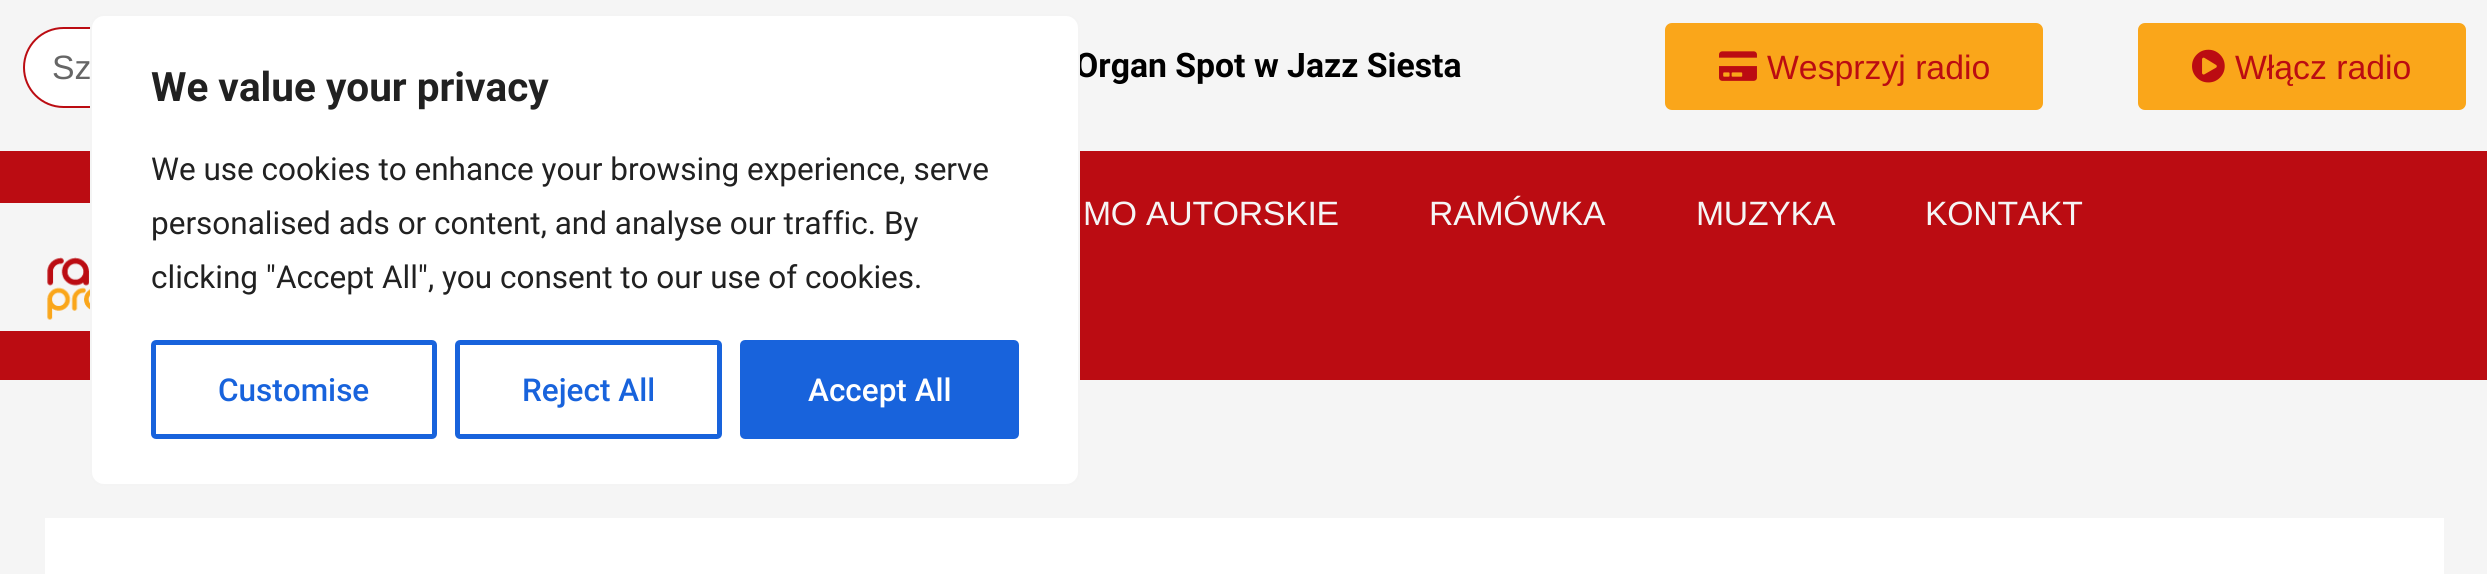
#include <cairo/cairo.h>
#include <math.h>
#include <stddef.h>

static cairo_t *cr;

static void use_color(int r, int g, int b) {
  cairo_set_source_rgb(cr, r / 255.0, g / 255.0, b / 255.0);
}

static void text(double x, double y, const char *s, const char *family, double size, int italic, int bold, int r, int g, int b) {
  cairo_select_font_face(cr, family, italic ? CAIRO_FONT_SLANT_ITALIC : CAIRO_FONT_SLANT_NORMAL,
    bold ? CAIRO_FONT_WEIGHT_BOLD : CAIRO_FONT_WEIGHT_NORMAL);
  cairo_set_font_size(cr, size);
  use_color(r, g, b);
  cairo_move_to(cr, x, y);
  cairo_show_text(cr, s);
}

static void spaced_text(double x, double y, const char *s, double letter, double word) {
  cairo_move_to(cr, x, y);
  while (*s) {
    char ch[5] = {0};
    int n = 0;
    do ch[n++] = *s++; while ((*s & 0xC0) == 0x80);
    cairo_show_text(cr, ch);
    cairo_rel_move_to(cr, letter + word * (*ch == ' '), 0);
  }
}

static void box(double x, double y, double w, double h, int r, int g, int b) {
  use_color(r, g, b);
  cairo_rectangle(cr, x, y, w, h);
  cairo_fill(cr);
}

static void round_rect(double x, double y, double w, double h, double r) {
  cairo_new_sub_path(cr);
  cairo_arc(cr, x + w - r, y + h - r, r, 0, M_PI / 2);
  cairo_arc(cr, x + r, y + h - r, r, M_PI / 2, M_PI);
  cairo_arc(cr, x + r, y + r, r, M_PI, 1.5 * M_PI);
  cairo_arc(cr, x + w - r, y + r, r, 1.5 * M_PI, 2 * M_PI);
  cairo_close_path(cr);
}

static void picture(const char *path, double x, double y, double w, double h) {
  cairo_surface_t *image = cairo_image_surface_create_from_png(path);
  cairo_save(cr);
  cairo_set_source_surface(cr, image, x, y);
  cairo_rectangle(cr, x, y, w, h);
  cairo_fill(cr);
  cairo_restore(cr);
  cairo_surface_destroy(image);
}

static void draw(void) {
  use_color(245, 245, 245);
  cairo_paint(cr);
  use_color(255, 255, 255);
  round_rect(24, 28, 340, 79, 39.5);
  cairo_fill_preserve(cr);
  use_color(187, 12, 18);
  cairo_stroke(cr);
  use_color(250, 166, 26);
  round_rect(1665, 23, 378, 87, 7);
  cairo_fill(cr);
  picture("img_01.png", 1719, 51, 38, 30);
  round_rect(2138, 23, 328, 87, 7);
  cairo_fill(cr);
  picture("img_02.png", 2192, 49, 33, 34);
  box(0, 151, 2487, 229, 187, 12, 18);
  box(0, 203, 90, 128, 245, 245, 245);
  picture("img_03.png", 47, 257, 43, 63);
  box(45, 518, 2399, 56, 255, 255, 255);
  text(52, 79, "Sz", "Liberation Sans", 33.75, 0, 0, 102, 102, 102);
  text(1075, 77, "Organ Spot w Jazz Siesta", "Roboto", 33.75, 0, 1, 0, 0, 0);
  text(1767, 79, "Wesprzyj radio", "Liberation Sans", 33.75, 0, 0, 187, 12, 18);
  text(2235, 79, "Włącz radio", "Liberation Sans", 33.75, 0, 0, 187, 12, 18);
  use_color(245, 245, 245);
  spaced_text(1083, 225, "MO AUTORSKIE", -0.25, 0);
  spaced_text(1429, 225, "RAMÓWKA", -0.25, 0);
  spaced_text(1696, 225, "MUZYKA", -0.25, 0);
  spaced_text(1925, 225, "KONTAKT", -0.25, 0);
  use_color(255, 255, 255);
  round_rect(91, 15, 988, 470, 13);
  cairo_fill_preserve(cr);
  use_color(244, 244, 244);
  cairo_stroke(cr);
  text(151, 101, "We value your privacy", "Roboto", 40.5, 0, 1, 33, 33, 33);
  text(151, 180, "We use cookies to enhance your browsing experience, serve", "Roboto", 31.5, 0, 0, 33, 33, 33);
  text(151, 234, "personalised ads or content, and analyse our traffic. By", "Roboto", 31.5, 0, 0, 33, 33, 33);
  text(151, 288, "clicking \"Accept All\", you consent to our use of cookies.", "Roboto", 31.5, 0, 0, 33, 33, 33);
  round_rect(153.5, 342.5, 281, 94, 2.5);
  use_color(24, 99, 220);
  cairo_set_line_width(cr, 5);
  cairo_stroke(cr);
  text(218, 401, "Customise", "Roboto Medium", 31.5, 0, 0, 24, 99, 220);
  round_rect(457.5, 342.5, 262, 94, 2.5);
  cairo_stroke(cr);
  text(522, 401, "Reject All", "Roboto Medium", 31.5, 0, 0, 24, 99, 220);
  round_rect(742.5, 342.5, 274, 94, 2.5);
  cairo_fill_preserve(cr);
  cairo_stroke(cr);
  text(808, 401, "Accept All", "Roboto Medium", 31.5, 0, 0, 255, 255, 255);
}

int main(void) {
  cairo_surface_t *surface = cairo_image_surface_create(CAIRO_FORMAT_RGB24, 2487, 574);
  cr = cairo_create(surface);
  cairo_font_options_t *options = cairo_font_options_create();
  cairo_font_options_set_hint_metrics(options, CAIRO_HINT_METRICS_OFF);
  cairo_font_options_set_hint_style(options, CAIRO_HINT_STYLE_NONE);
  cairo_set_font_options(cr, options);
  cairo_set_miter_limit(cr, 4);
  draw();
  cairo_surface_write_to_png(surface, "out.png");
  cairo_font_options_destroy(options);
  cairo_destroy(cr);
  cairo_surface_destroy(surface);
  return 0;
}
